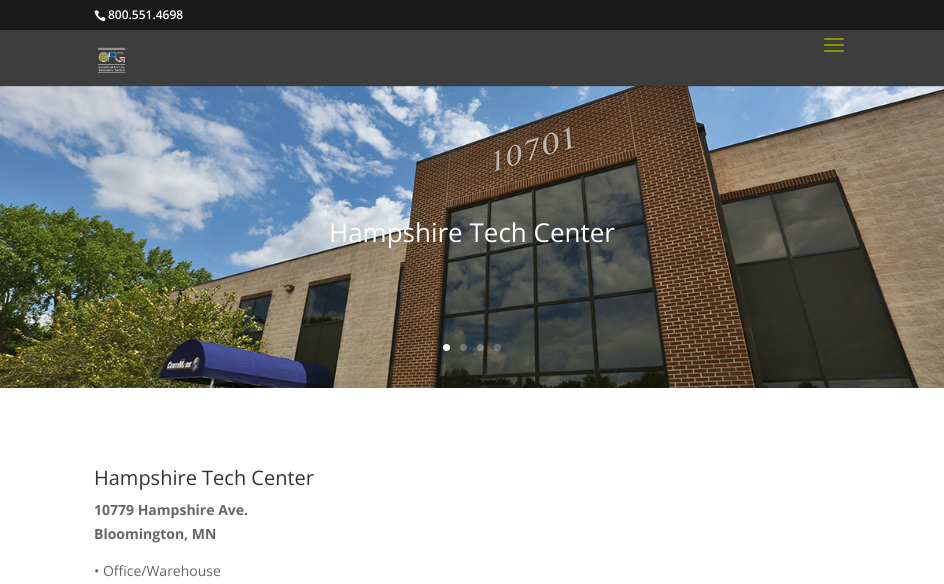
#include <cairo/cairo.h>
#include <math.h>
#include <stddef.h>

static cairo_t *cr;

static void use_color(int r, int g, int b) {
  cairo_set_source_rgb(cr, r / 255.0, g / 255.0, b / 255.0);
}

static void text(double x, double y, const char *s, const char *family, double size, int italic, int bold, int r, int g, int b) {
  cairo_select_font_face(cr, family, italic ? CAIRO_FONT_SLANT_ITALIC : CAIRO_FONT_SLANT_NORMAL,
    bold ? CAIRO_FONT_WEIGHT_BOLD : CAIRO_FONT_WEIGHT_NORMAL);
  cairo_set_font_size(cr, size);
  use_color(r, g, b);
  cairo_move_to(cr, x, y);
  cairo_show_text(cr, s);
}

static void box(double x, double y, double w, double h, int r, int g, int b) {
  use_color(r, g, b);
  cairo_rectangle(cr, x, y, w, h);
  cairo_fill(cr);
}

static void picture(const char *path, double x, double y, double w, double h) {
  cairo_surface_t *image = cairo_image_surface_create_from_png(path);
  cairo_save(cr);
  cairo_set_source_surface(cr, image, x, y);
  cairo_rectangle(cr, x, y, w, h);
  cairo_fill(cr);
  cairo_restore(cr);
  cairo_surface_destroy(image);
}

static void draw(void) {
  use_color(255, 255, 255);
  cairo_paint(cr);
  box(0, 0, 944, 30, 25, 25, 25);
  picture("img_01.png", 94, 10, 12, 12);
  picture("img_04.png", 0, 86, 944, 302);
  cairo_set_source_rgba(cr, 0, 0, 0, 0.1);
  cairo_rectangle(cr, 0, 86, 944, 1);
  cairo_fill(cr);
  box(0, 30, 944, 56, 61, 61, 61);
  picture("img_02.png", 824, 38, 20, 14);
  picture("img_03.png", 98, 47, 28, 26);
  use_color(255, 255, 255);
  cairo_arc(cr, 446.5, 347.5, 3.5, 0, 2 * M_PI);
  cairo_fill(cr);
  cairo_set_source_rgba(cr, 1, 1, 1, 0.25);
  cairo_arc(cr, 463.5, 347.5, 3.5, 0, 2 * M_PI);
  cairo_fill(cr);
  cairo_arc(cr, 480.5, 347.5, 3.5, 0, 2 * M_PI);
  cairo_fill(cr);
  cairo_arc(cr, 497.5, 347.5, 3.5, 0, 2 * M_PI);
  cairo_fill(cr);
  text(108, 19, "800.551.4698", "Open Sans SemiBold", 12, 0, 0, 255, 255, 255);
  text(329, 242, "Hampshire Tech Center", "Open Sans", 26, 0, 0, 255, 255, 255);
  text(94, 485, "Hampshire Tech Center", "Open Sans", 20, 0, 0, 51, 51, 51);
  text(94, 515, "10779 Hampshire Ave.", "Open Sans", 14, 0, 1, 102, 102, 102);
  text(94, 539, "Bloomington, MN", "Open Sans", 14, 0, 1, 102, 102, 102);
  text(94, 576, "• Office/Warehouse", "Open Sans", 14, 0, 0, 102, 102, 102);
}

int main(void) {
  cairo_surface_t *surface = cairo_image_surface_create(CAIRO_FORMAT_RGB24, 944, 584);
  cr = cairo_create(surface);
  cairo_font_options_t *options = cairo_font_options_create();
  cairo_font_options_set_hint_metrics(options, CAIRO_HINT_METRICS_OFF);
  cairo_font_options_set_hint_style(options, CAIRO_HINT_STYLE_NONE);
  cairo_set_font_options(cr, options);
  cairo_set_miter_limit(cr, 4);
  draw();
  cairo_surface_write_to_png(surface, "out.png");
  cairo_font_options_destroy(options);
  cairo_destroy(cr);
  cairo_surface_destroy(surface);
  return 0;
}
